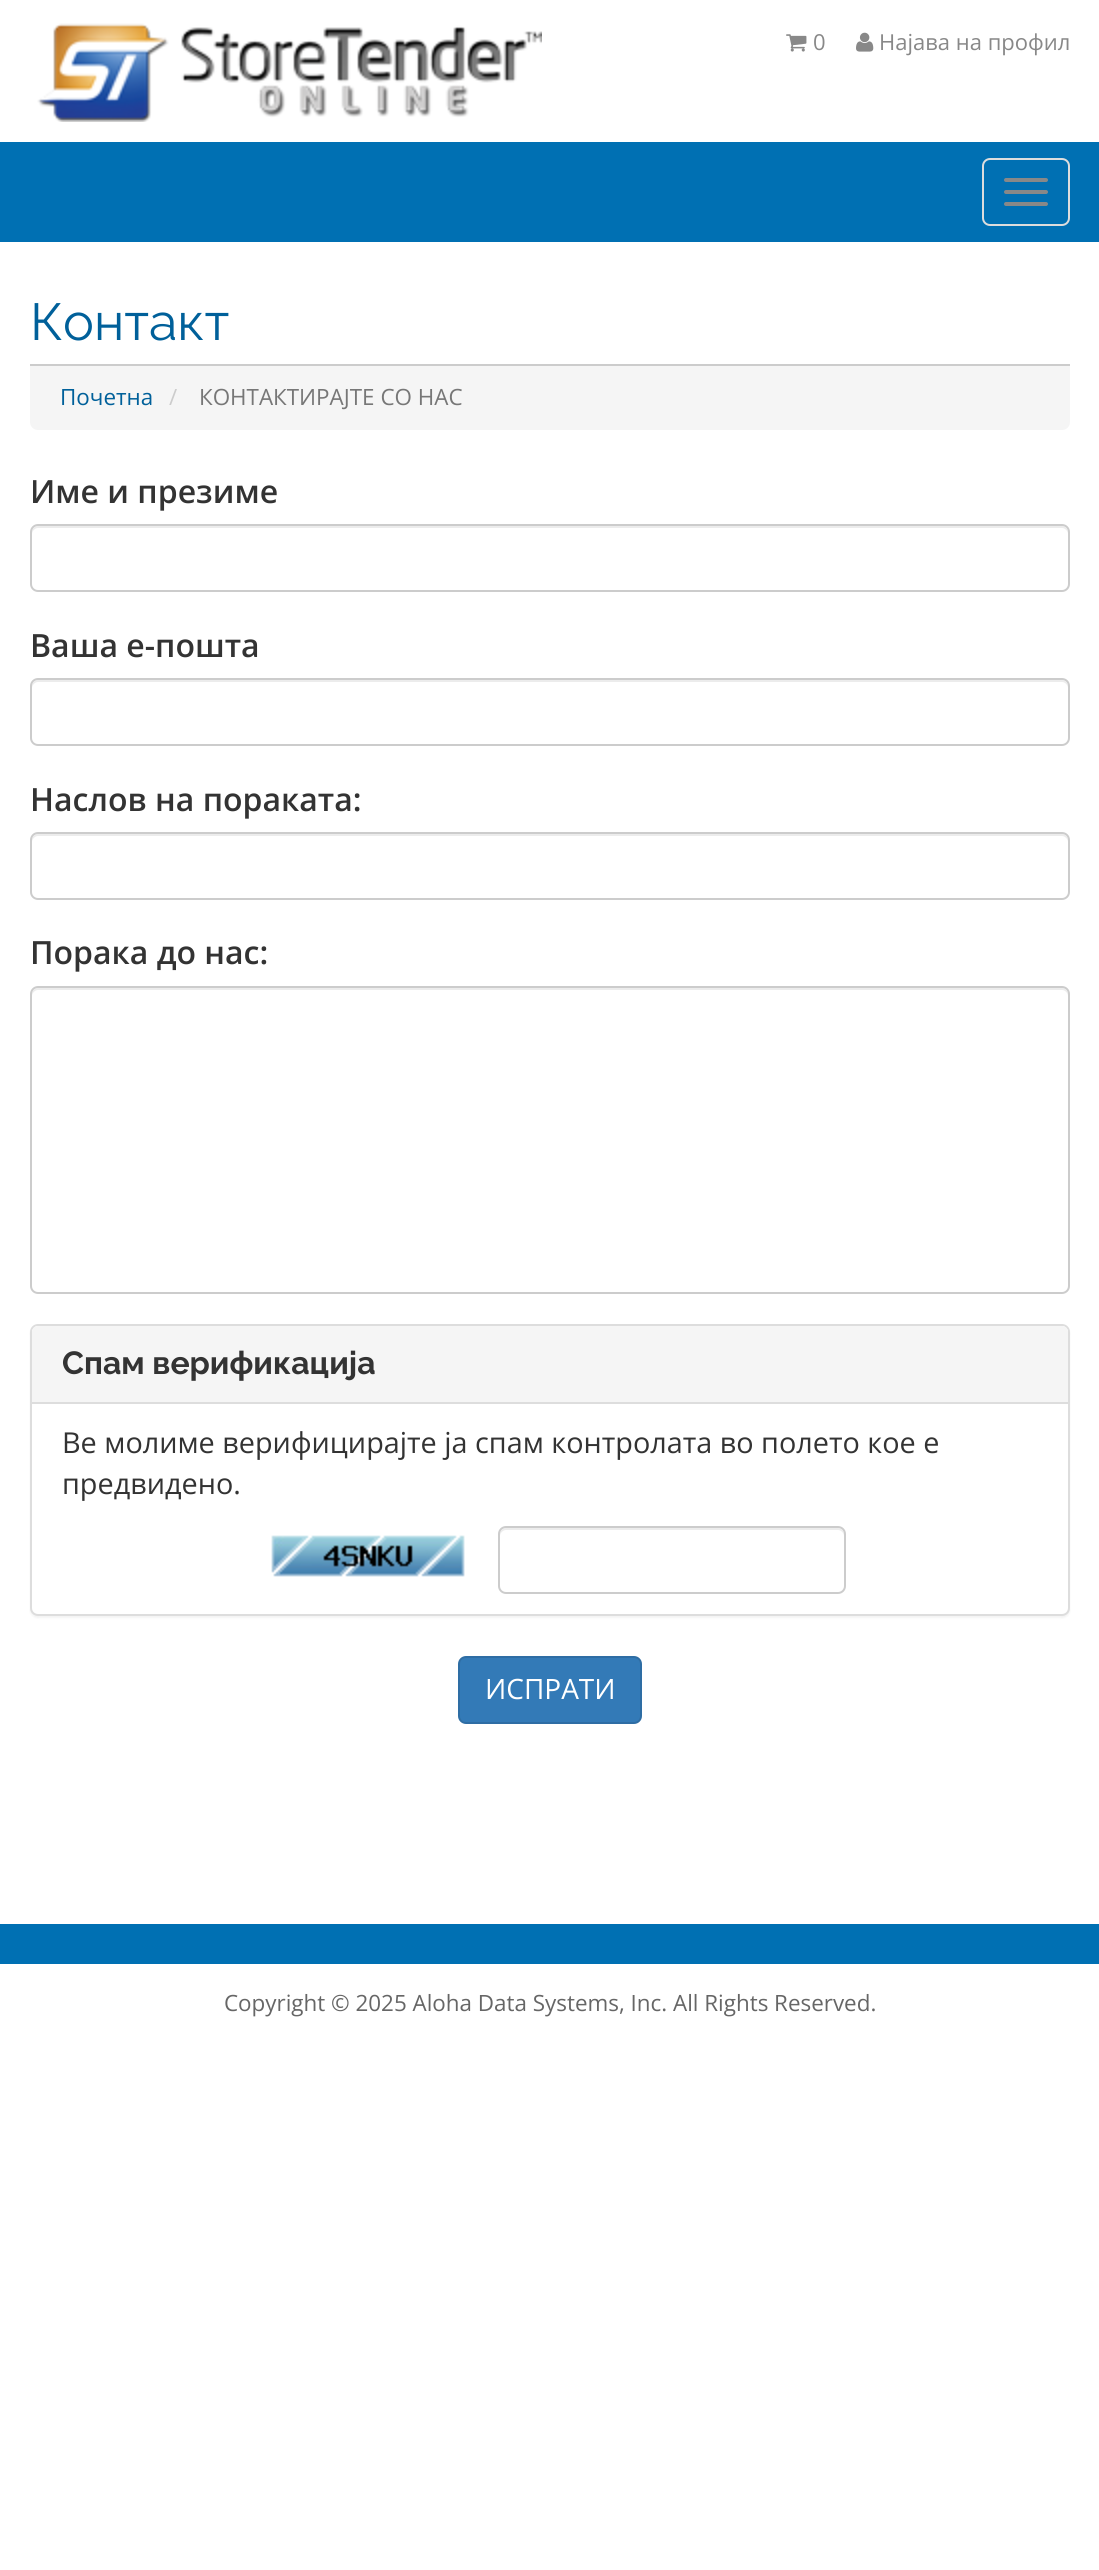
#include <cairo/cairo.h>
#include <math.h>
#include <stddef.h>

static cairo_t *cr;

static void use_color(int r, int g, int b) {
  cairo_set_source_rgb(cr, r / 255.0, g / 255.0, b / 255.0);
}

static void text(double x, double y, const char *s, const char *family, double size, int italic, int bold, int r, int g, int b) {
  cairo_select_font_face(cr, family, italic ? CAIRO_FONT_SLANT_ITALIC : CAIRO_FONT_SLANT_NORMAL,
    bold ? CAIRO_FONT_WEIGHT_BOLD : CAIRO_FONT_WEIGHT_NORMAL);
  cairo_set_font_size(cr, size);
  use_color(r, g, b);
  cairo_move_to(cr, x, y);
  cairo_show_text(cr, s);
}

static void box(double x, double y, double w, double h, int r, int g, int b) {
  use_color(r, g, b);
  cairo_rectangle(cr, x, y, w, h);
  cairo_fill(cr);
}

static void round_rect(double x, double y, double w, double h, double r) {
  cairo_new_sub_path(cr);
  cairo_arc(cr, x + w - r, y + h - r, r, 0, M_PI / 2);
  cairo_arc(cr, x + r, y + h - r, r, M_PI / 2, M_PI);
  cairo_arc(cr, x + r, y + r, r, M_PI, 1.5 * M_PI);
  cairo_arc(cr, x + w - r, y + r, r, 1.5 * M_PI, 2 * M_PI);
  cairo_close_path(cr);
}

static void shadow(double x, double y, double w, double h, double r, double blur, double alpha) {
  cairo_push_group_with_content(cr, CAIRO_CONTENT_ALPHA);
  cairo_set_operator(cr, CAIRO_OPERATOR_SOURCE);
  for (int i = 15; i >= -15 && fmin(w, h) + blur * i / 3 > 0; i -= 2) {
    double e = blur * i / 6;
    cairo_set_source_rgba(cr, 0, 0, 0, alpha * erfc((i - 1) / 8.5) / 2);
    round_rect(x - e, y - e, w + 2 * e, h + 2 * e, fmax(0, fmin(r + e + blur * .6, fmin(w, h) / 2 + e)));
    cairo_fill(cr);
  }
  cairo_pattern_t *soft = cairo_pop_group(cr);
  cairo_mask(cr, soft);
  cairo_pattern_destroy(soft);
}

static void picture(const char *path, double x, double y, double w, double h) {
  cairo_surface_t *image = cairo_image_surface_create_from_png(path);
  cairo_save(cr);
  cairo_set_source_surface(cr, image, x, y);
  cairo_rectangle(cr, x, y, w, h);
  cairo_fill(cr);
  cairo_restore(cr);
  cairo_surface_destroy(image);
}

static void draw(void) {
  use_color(255, 255, 255);
  cairo_paint(cr);
  picture("img_01.png", 37, 23, 505, 99);
  picture("img_02.png", 786, 34, 21, 18);
  picture("img_03.png", 856, 32, 18, 20);
  box(0, 142, 1099, 100, 0, 112, 179);
  round_rect(983, 159, 86, 66, 7);
  use_color(221, 221, 221);
  cairo_stroke(cr);
  use_color(136, 136, 136);
  round_rect(1004, 178, 44, 4, 2);
  cairo_fill(cr);
  round_rect(1004, 190, 44, 4, 2);
  cairo_fill(cr);
  round_rect(1004, 202, 44, 4, 2);
  cairo_fill(cr);
  box(30, 364, 1040, 2, 204, 204, 204);
  use_color(245, 245, 245);
  cairo_new_path(cr);
  cairo_move_to(cr, 30, 366);
  cairo_line_to(cr, 1070, 366);
  cairo_line_to(cr, 1070, 422);
  cairo_curve_to(cr, 1070, 426.5, 1066.5, 430, 1062, 430);
  cairo_line_to(cr, 38, 430);
  cairo_curve_to(cr, 33.5, 430, 30, 426.5, 30, 422);
  cairo_close_path(cr);
  cairo_fill(cr);
  use_color(236, 236, 236);
  cairo_new_path(cr);
  cairo_move_to(cr, 38, 528);
  cairo_line_to(cr, 1062, 528);
  cairo_curve_to(cr, 1065, 528, 1068, 531, 1068, 534);
  cairo_line_to(cr, 1068, 532);
  cairo_curve_to(cr, 1068, 529, 1065, 526, 1062, 526);
  cairo_line_to(cr, 38, 526);
  cairo_curve_to(cr, 35, 526, 32, 529, 32, 532);
  cairo_line_to(cr, 32, 534);
  cairo_curve_to(cr, 32, 531, 35, 528, 38, 528);
  cairo_close_path(cr);
  cairo_fill(cr);
  round_rect(31, 525, 1038, 66, 7);
  use_color(204, 204, 204);
  cairo_stroke(cr);
  use_color(236, 236, 236);
  cairo_new_path(cr);
  cairo_move_to(cr, 38, 682);
  cairo_line_to(cr, 1062, 682);
  cairo_curve_to(cr, 1065, 682, 1068, 685, 1068, 688);
  cairo_line_to(cr, 1068, 686);
  cairo_curve_to(cr, 1068, 683, 1065, 680, 1062, 680);
  cairo_line_to(cr, 38, 680);
  cairo_curve_to(cr, 35, 680, 32, 683, 32, 686);
  cairo_line_to(cr, 32, 688);
  cairo_curve_to(cr, 32, 685, 35, 682, 38, 682);
  cairo_close_path(cr);
  cairo_fill(cr);
  round_rect(31, 679, 1038, 66, 7);
  use_color(204, 204, 204);
  cairo_stroke(cr);
  use_color(236, 236, 236);
  cairo_new_path(cr);
  cairo_move_to(cr, 38, 836);
  cairo_line_to(cr, 1062, 836);
  cairo_curve_to(cr, 1065, 836, 1068, 839, 1068, 842);
  cairo_line_to(cr, 1068, 840);
  cairo_curve_to(cr, 1068, 837, 1065, 834, 1062, 834);
  cairo_line_to(cr, 38, 834);
  cairo_curve_to(cr, 35, 834, 32, 837, 32, 840);
  cairo_line_to(cr, 32, 842);
  cairo_curve_to(cr, 32, 839, 35, 836, 38, 836);
  cairo_close_path(cr);
  cairo_fill(cr);
  round_rect(31, 833, 1038, 66, 7);
  use_color(204, 204, 204);
  cairo_stroke(cr);
  use_color(236, 236, 236);
  cairo_new_path(cr);
  cairo_move_to(cr, 38, 990);
  cairo_line_to(cr, 1062, 990);
  cairo_curve_to(cr, 1065, 990, 1068, 993, 1068, 996);
  cairo_line_to(cr, 1068, 994);
  cairo_curve_to(cr, 1068, 991, 1065, 988, 1062, 988);
  cairo_line_to(cr, 38, 988);
  cairo_curve_to(cr, 35, 988, 32, 991, 32, 994);
  cairo_line_to(cr, 32, 996);
  cairo_curve_to(cr, 32, 993, 35, 990, 38, 990);
  cairo_close_path(cr);
  cairo_fill(cr);
  round_rect(31, 987, 1038, 306, 7);
  use_color(204, 204, 204);
  cairo_stroke(cr);
  use_color(0, 0, 0);
  shadow(30, 1326, 1040, 292, 8, 1, 0.05);
  use_color(255, 255, 255);
  round_rect(31, 1325, 1038, 290, 7);
  cairo_fill_preserve(cr);
  use_color(221, 221, 221);
  cairo_stroke(cr);
  use_color(245, 245, 245);
  cairo_new_path(cr);
  cairo_move_to(cr, 38, 1326);
  cairo_line_to(cr, 1062, 1326);
  cairo_curve_to(cr, 1065.5, 1326, 1068, 1328.5, 1068, 1332);
  cairo_line_to(cr, 1068, 1404);
  cairo_line_to(cr, 32, 1404);
  cairo_line_to(cr, 32, 1332);
  cairo_curve_to(cr, 32, 1328.5, 34.5, 1326, 38, 1326);
  cairo_close_path(cr);
  cairo_fill(cr);
  box(32, 1402, 1036, 2, 221, 221, 221);
  picture("img_04.png", 271, 1535, 194, 42);
  use_color(236, 236, 236);
  cairo_new_path(cr);
  cairo_move_to(cr, 506, 1530);
  cairo_line_to(cr, 838, 1530);
  cairo_curve_to(cr, 841, 1530, 844, 1533, 844, 1536);
  cairo_line_to(cr, 844, 1534);
  cairo_curve_to(cr, 844, 1531, 841, 1528, 838, 1528);
  cairo_line_to(cr, 506, 1528);
  cairo_curve_to(cr, 503, 1528, 500, 1531, 500, 1534);
  cairo_line_to(cr, 500, 1536);
  cairo_curve_to(cr, 500, 1533, 503, 1530, 506, 1530);
  cairo_close_path(cr);
  cairo_fill(cr);
  round_rect(499, 1527, 346, 66, 7);
  use_color(204, 204, 204);
  cairo_stroke(cr);
  use_color(51, 122, 183);
  round_rect(459, 1657, 182, 66, 7);
  cairo_fill_preserve(cr);
  use_color(46, 109, 164);
  cairo_stroke(cr);
  box(0, 1924, 1099, 40, 0, 112, 179);
  text(813, 50, "0", "Open Sans", 22, 0, 0, 136, 136, 136);
  text(879, 50, "Најава на профил", "Open Sans", 22, 0, 0, 136, 136, 136);
  text(30, 340, "Контакт", "Raleway", 52, 0, 0, 0, 96, 154);
  text(60, 405, "Почетна", "Open Sans", 22.4, 0, 0, 0, 96, 154);
  text(169, 405, "/", "Open Sans", 22.4, 0, 0, 204, 204, 204);
  text(199, 405, "КОНТАКТИРАЈТЕ СО НАС", "Open Sans", 22.4, 0, 0, 119, 119, 119);
  text(30, 503, "Име и презиме", "Open Sans SemiBold", 32, 0, 0, 51, 51, 51);
  text(30, 657, "Ваша е-пошта", "Open Sans SemiBold", 32, 0, 0, 51, 51, 51);
  text(30, 811, "Наслов на пораката:", "Open Sans SemiBold", 32, 0, 0, 51, 51, 51);
  text(30, 964, "Порака до нас:", "Open Sans SemiBold", 32, 0, 0, 51, 51, 51);
  text(62, 1374, "Спам верификација", "Raleway", 32, 0, 1, 51, 51, 51);
  text(62, 1453, "Ве молиме верифицирајте ја спам контролата во полето кое е", "Open Sans", 28.8, 0, 0, 51, 51, 51);
  text(62, 1494, "предвидено.", "Open Sans", 28.8, 0, 0, 51, 51, 51);
  text(485, 1699, "ИСПРАТИ", "Open Sans", 28, 0, 0, 255, 255, 255);
  text(224, 2011, "Copyright © 2025 Aloha Data Systems, Inc. All Rights Reserved.", "Open Sans", 22.4, 0, 0, 102, 102, 102);
}

int main(void) {
  cairo_surface_t *surface = cairo_image_surface_create(CAIRO_FORMAT_RGB24, 1099, 2570);
  cr = cairo_create(surface);
  cairo_font_options_t *options = cairo_font_options_create();
  cairo_font_options_set_hint_metrics(options, CAIRO_HINT_METRICS_OFF);
  cairo_font_options_set_hint_style(options, CAIRO_HINT_STYLE_NONE);
  cairo_set_font_options(cr, options);
  cairo_set_miter_limit(cr, 4);
  draw();
  cairo_surface_write_to_png(surface, "out.png");
  cairo_font_options_destroy(options);
  cairo_destroy(cr);
  cairo_surface_destroy(surface);
  return 0;
}
